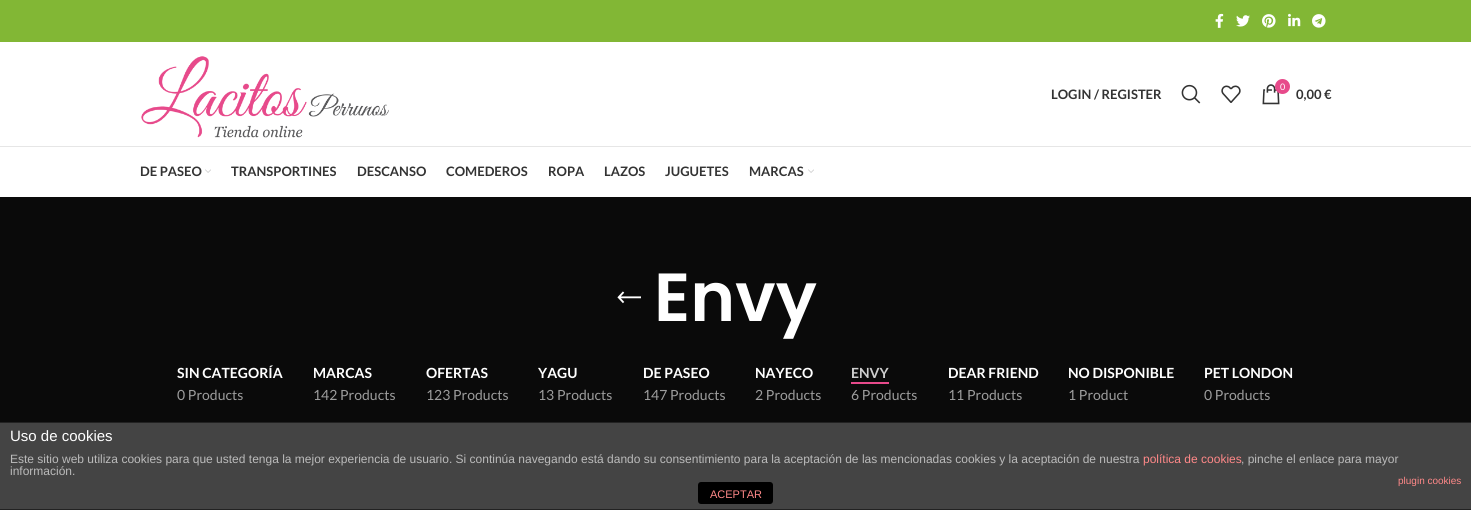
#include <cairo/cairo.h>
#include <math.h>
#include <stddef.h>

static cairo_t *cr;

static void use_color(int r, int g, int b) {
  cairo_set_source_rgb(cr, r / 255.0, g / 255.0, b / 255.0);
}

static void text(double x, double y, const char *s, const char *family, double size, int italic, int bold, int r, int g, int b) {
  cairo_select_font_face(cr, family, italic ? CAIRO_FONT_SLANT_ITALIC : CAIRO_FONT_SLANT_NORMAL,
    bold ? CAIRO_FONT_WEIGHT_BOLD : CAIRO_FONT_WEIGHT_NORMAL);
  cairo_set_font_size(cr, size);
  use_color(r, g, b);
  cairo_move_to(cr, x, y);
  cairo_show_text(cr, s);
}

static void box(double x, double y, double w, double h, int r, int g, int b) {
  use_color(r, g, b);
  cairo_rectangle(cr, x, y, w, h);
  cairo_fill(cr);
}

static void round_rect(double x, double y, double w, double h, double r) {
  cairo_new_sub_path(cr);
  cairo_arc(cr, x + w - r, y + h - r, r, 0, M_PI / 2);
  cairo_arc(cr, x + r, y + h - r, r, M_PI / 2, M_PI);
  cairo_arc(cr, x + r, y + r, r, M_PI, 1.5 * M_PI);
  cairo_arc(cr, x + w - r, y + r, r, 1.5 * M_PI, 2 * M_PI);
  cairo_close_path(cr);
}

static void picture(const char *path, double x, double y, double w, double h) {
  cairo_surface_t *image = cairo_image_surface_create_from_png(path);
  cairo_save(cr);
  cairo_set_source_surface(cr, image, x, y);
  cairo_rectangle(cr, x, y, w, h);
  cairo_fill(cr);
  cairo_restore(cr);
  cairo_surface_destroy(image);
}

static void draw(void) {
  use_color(255, 255, 255);
  cairo_paint(cr);
  box(0, 0, 1471, 42, 130, 183, 53);
  picture("img_01.png", 1215, 13, 9, 15);
  picture("img_02.png", 1236, 15, 14, 12);
  picture("img_03.png", 1262, 14, 14, 14);
  picture("img_04.png", 1288, 13, 13, 14);
  picture("img_05.png", 1312, 14, 14, 14);
  box(0, 146, 1471, 1, 230, 230, 230);
  picture("img_06.png", 141, 56, 248, 82);
  picture("img_07.png", 1181, 84, 20, 20);
  picture("img_08.png", 1221, 85, 20, 18);
  picture("img_09.png", 1262, 84, 18, 21);
  use_color(231, 74, 139);
  cairo_arc(cr, 1282.5, 86.5, 7.5, 0, 2 * M_PI);
  cairo_fill(cr);
  picture("img_10.png", 205, 169, 6, 4);
  picture("img_10.png", 808, 169, 6, 4);
  box(0, 197, 1471, 225, 10, 10, 10);
  picture("img_11.png", 617, 291, 24, 13);
  box(851, 382, 38, 2, 231, 74, 139);
  box(0, 423, 1471, 86, 68, 68, 68);
  box(0, 422, 1471, 1, 34, 34, 34);
  box(0, 509, 1471, 1, 34, 34, 34);
  use_color(0, 0, 0);
  round_rect(698, 482, 75, 22, 3);
  cairo_fill(cr);
  text(1051, 99, "LOGIN / REGISTER", "Lato", 13, 0, 1, 51, 51, 51);
  text(1280, 90, "0", "Lato", 9, 0, 0, 255, 255, 255);
  text(1296, 99, "0,00 €", "Lato", 13, 0, 1, 51, 51, 51);
  text(140, 176, "DE PASEO", "Lato", 13, 0, 1, 51, 51, 51);
  text(231, 176, "TRANSPORTINES", "Lato", 13, 0, 1, 51, 51, 51);
  text(357, 176, "DESCANSO", "Lato", 13, 0, 1, 51, 51, 51);
  text(446, 176, "COMEDEROS", "Lato", 13, 0, 1, 51, 51, 51);
  text(548, 176, "ROPA", "Lato", 13, 0, 1, 51, 51, 51);
  text(604, 176, "LAZOS", "Lato", 13, 0, 1, 51, 51, 51);
  text(665, 176, "JUGUETES", "Lato", 13, 0, 1, 51, 51, 51);
  text(749, 176, "MARCAS", "Lato", 13, 0, 1, 51, 51, 51);
  text(654, 321, "Envy", "Poppins SemiBold", 68, 0, 0, 255, 255, 255);
  text(177, 378, "SIN CATEGORÍA", "Lato", 14, 0, 1, 255, 255, 255);
  text(177, 400, "0 Products", "Lato", 14, 0, 0, 157, 157, 157);
  text(313, 378, "MARCAS", "Lato", 14, 0, 1, 255, 255, 255);
  text(313, 400, "142 Products", "Lato", 14, 0, 0, 157, 157, 157);
  text(426, 378, "OFERTAS", "Lato", 14, 0, 1, 255, 255, 255);
  text(426, 400, "123 Products", "Lato", 14, 0, 0, 157, 157, 157);
  text(538, 378, "YAGU", "Lato", 14, 0, 1, 255, 255, 255);
  text(538, 400, "13 Products", "Lato", 14, 0, 0, 157, 157, 157);
  text(643, 378, "DE PASEO", "Lato", 14, 0, 1, 255, 255, 255);
  text(643, 400, "147 Products", "Lato", 14, 0, 0, 157, 157, 157);
  text(755, 378, "NAYECO", "Lato", 14, 0, 1, 255, 255, 255);
  text(755, 400, "2 Products", "Lato", 14, 0, 0, 157, 157, 157);
  text(851, 378, "ENVY", "Lato", 14, 0, 1, 206, 206, 206);
  text(851, 400, "6 Products", "Lato", 14, 0, 0, 157, 157, 157);
  text(948, 378, "DEAR FRIEND", "Lato", 14, 0, 1, 255, 255, 255);
  text(948, 400, "11 Products", "Lato", 14, 0, 0, 157, 157, 157);
  text(1068, 378, "NO DISPONIBLE", "Lato", 14, 0, 1, 255, 255, 255);
  text(1068, 400, "1 Product", "Lato", 14, 0, 0, 157, 157, 157);
  text(1204, 378, "PET LONDON", "Lato", 14, 0, 1, 255, 255, 255);
  text(1204, 400, "0 Products", "Lato", 14, 0, 0, 157, 157, 157);
  text(10, 441, "Uso de cookies", "Liberation Sans", 15, 0, 0, 255, 255, 255);
  text(10, 463, "Este sitio web utiliza cookies para que usted tenga la mejor experiencia de usuario. Si continúa navegando está dando su consentimiento para la aceptación de las mencionadas cookies y la aceptación de nuestra", "Liberation Sans", 12, 0, 0, 187, 187, 187);
  text(1143, 463, "política de cookies", "Liberation Sans", 12, 0, 0, 255, 136, 136);
  text(1241, 463, ", pinche el enlace para mayor", "Liberation Sans", 12, 0, 0, 187, 187, 187);
  text(10, 475, "información.", "Liberation Sans", 12, 0, 0, 187, 187, 187);
  text(1398, 484, "plugin cookies", "Liberation Sans", 10, 0, 0, 255, 136, 136);
  text(710, 498, "ACEPTAR", "Liberation Sans", 11, 0, 0, 255, 136, 136);
}

int main(void) {
  cairo_surface_t *surface = cairo_image_surface_create(CAIRO_FORMAT_RGB24, 1471, 510);
  cr = cairo_create(surface);
  cairo_font_options_t *options = cairo_font_options_create();
  cairo_font_options_set_hint_metrics(options, CAIRO_HINT_METRICS_OFF);
  cairo_font_options_set_hint_style(options, CAIRO_HINT_STYLE_NONE);
  cairo_set_font_options(cr, options);
  cairo_set_miter_limit(cr, 4);
  draw();
  cairo_surface_write_to_png(surface, "out.png");
  cairo_font_options_destroy(options);
  cairo_destroy(cr);
  cairo_surface_destroy(surface);
  return 0;
}
